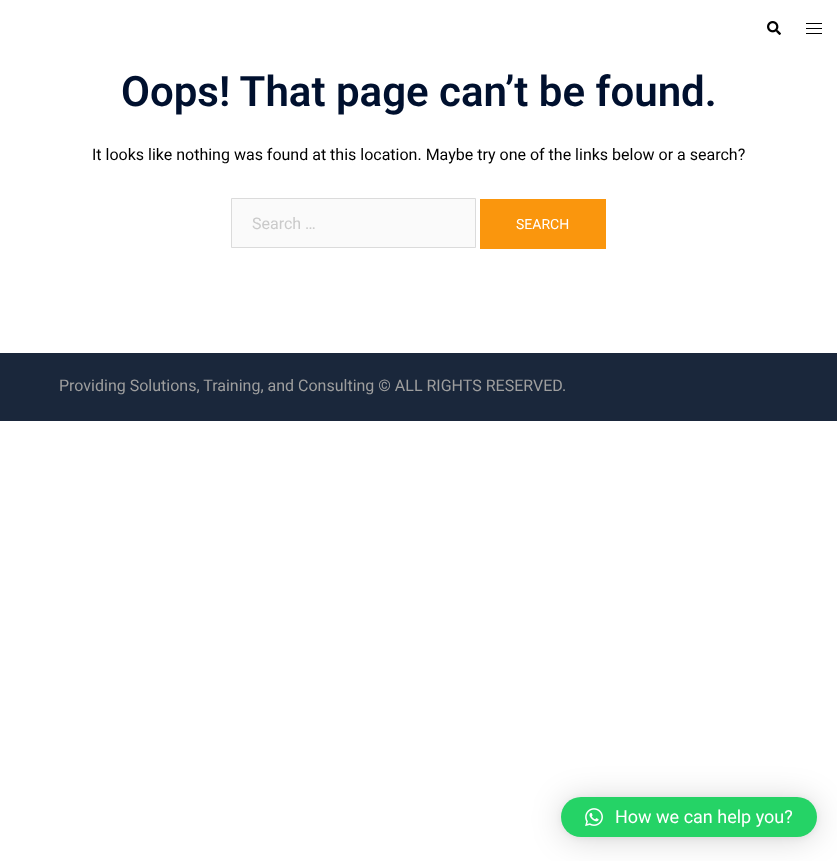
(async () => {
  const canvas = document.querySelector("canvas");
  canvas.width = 837;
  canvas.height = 861;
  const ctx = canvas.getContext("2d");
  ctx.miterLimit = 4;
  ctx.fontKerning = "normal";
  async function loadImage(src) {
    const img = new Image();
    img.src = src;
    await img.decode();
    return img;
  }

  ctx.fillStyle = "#ffffff";
  ctx.fillRect(0, 0, 837, 861);
  ctx.drawImage(await loadImage("img/1.png"), 767, 21, 14, 14);
  for (const [x, y, w, h, color] of [
    [806, 23, 16, 1, "#000000"],
    [806, 28, 16, 1, "#000000"],
    [806, 33, 16, 1, "#000000"],
  ]) {
    ctx.fillStyle = color;
    ctx.fillRect(x, y, w, h);
  }
  ctx.fillStyle = "#fafafa";
  ctx.beginPath();
  ctx.rect(231.5, 198.5, 244, 49);
  ctx.fill();
  ctx.strokeStyle = "#dbdbdb";
  ctx.stroke();
  ctx.fillStyle = "#fa960d";
  ctx.fillRect(480, 199, 126, 50);
  ctx.fillStyle = "#1a273b";
  ctx.fillRect(0, 353, 837, 68);
  ctx.fillStyle = "rgba(0, 0, 0, 0.16)";
  ctx.filter = "blur(16px)";
  ctx.beginPath();
  ctx.roundRect(561, 799, 256, 40, 20);
  ctx.fill();
  ctx.filter = "none";
  ctx.fillStyle = "rgba(0, 0, 0, 0.06)";
  ctx.filter = "blur(3px)";
  ctx.beginPath();
  ctx.roundRect(561, 798, 256, 40, 20);
  ctx.fill();
  ctx.filter = "none";
  ctx.fillStyle = "#25d366";
  ctx.beginPath();
  ctx.roundRect(561, 797, 256, 40, 20);
  ctx.fill();
  ctx.drawImage(await loadImage("img/2.png"), 585, 808, 18, 19);
  ctx.font = "600 42px Roboto";
  ctx.fillStyle = "#00102e";
  ctx.fillText("Oops! That page can’t be found.", 121, 106);
  ctx.font = "16px Roboto";
  ctx.fillStyle = "#000000";
  ctx.fillText("It looks like nothing was found at this location. Maybe try one of the links below or a search?", 92, 160);
  ctx.fillStyle = "#cacaca";
  ctx.fillText("Search …", 252, 229);
  ctx.font = "14px Roboto";
  ctx.fillStyle = "#ffffff";
  ctx.fillText("SEARCH", 516, 229);
  ctx.font = "16px Roboto";
  ctx.fillStyle = "#9e9e9e";
  ctx.fillText("Providing Solutions, Training, and Consulting © ALL RIGHTS RESERVED.", 59, 391);
  ctx.font = "18px Roboto";
  ctx.fillStyle = "#ffffff";
  ctx.fillText("How we can help you?", 615, 823);
})();
